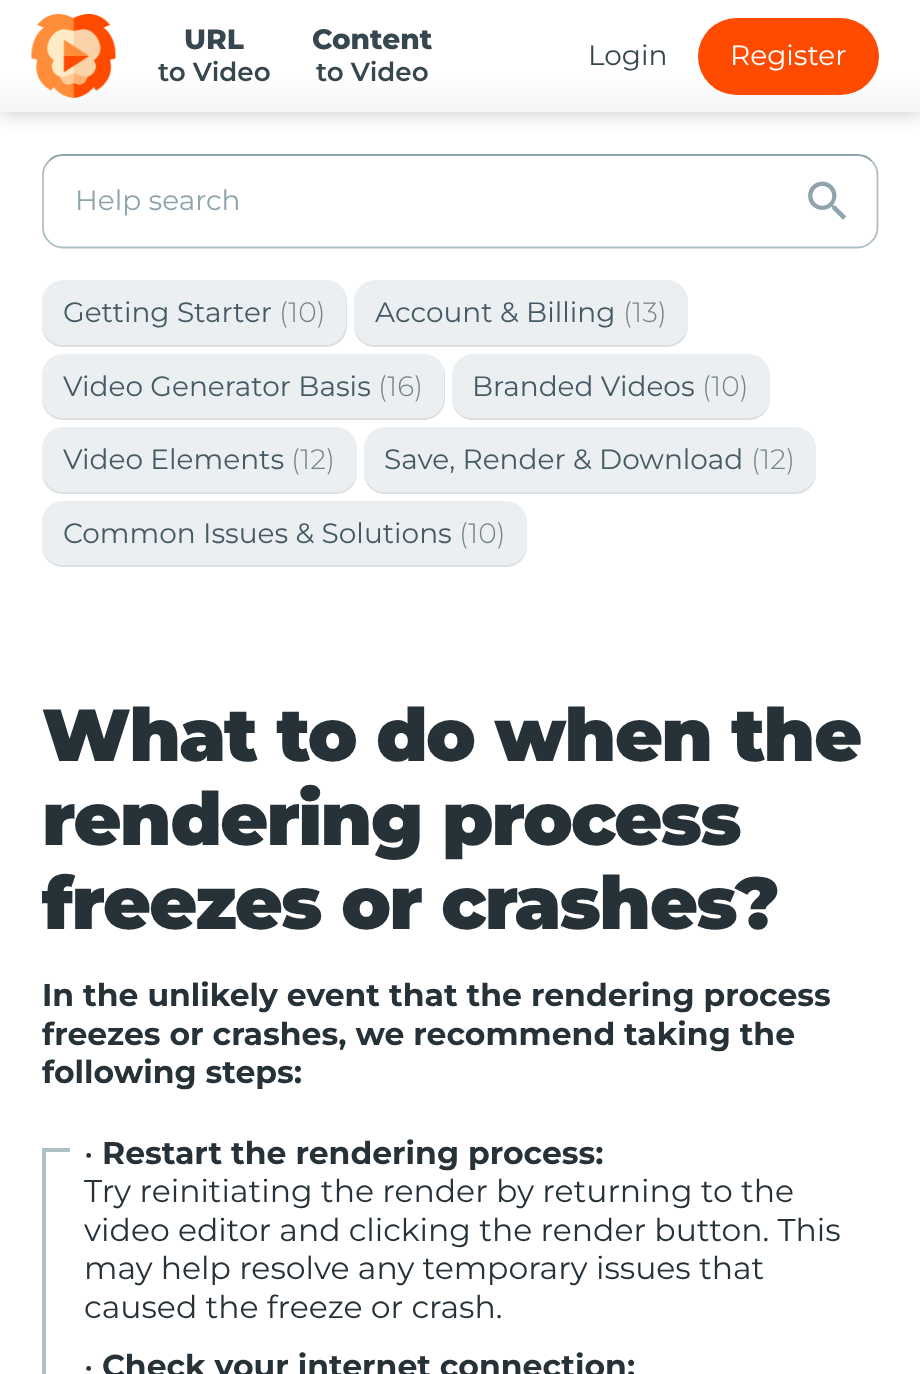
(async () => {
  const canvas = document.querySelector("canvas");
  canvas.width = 920;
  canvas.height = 1374;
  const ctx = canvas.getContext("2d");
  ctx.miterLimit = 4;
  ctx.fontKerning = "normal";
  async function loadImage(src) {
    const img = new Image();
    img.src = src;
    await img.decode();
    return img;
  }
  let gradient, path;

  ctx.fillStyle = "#ffffff";
  ctx.fillRect(0, 0, 920, 1374);
  ctx.fillStyle = "rgba(0, 0, 0, 0.24)";
  ctx.filter = "blur(10.5px)";
  ctx.beginPath();
  ctx.rect(0, 0, 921, 112);
  ctx.fill();
  ctx.filter = "none";
  gradient = ctx.createLinearGradient(460, 0, 460, 112);
  gradient.addColorStop(0.66, "#ffffff");
  gradient.addColorStop(1, "#f4f5f7");
  ctx.fillStyle = gradient;
  ctx.fillRect(0, 0, 920, 112);
  ctx.drawImage(await loadImage("img/1.png"), 31, 14, 85, 84);
  ctx.fillStyle = "#fe4b00";
  ctx.beginPath();
  ctx.roundRect(698, 18, 181, 77, 38.5);
  ctx.fill();
  path = new Path2D("M49 161C52.5 157 57.5 155 63 155H857.5C863 155 868 157 871.5 161");
  ctx.strokeStyle = "#90a4ae";
  ctx.lineWidth = 1.8;
  ctx.stroke(path);
  path = new Path2D("M871.5 161C875.5 164.5 877.5 169.5 877.5 175V227.5C877.5 233 875.5 238 871.5 241.5C868 245.5 863 247.5 857.5 247.5H63C57.5 247.5 52.5 245.5 49 241.5C45 238 43 233 43 227.5V175C43 169.5 45 164.5 49 161");
  ctx.strokeStyle = "#b0bec5";
  ctx.stroke(path);
  ctx.drawImage(await loadImage("img/2.png"), 808, 181, 39, 39);
  ctx.fillStyle = "#eceff1";
  ctx.beginPath();
  ctx.roundRect(42, 280, 305, 67, 21);
  ctx.fill();
  ctx.fillStyle = "rgba(38, 50, 56, 0.08)";
  path = new Path2D("M42 324V326C42 338 51 347 63 347H326C338 347 347 338 347 326V301C347 297 346 294 344 290C345 293 346 296 346 299V324C346 335 337 345 326 345H63C51 345 42 335 42 324Z");
  ctx.fill(path);
  ctx.fillStyle = "#eceff1";
  ctx.beginPath();
  ctx.roundRect(354, 280, 334, 67, 21);
  ctx.fill();
  ctx.fillStyle = "rgba(38, 50, 56, 0.08)";
  path = new Path2D("M354 324V326C354 338 363 347 375 347H667C679 347 688 338 688 326V324C688 335 678 345 667 345H374C363 345 354 335 354 324Z");
  ctx.fill(path);
  ctx.fillStyle = "#eceff1";
  ctx.beginPath();
  ctx.roundRect(42, 354, 403, 66, 21);
  ctx.fill();
  ctx.fillStyle = "rgba(38, 50, 56, 0.08)";
  path = new Path2D("M42 397V399C42 411 51 420 63 420H424C436 420 445 411 445 399V375C445 372 444 368 443 366C444 368 444 370 444 373V397C444 409 435 418 424 418H63C51 418 42 409 42 397Z");
  ctx.fill(path);
  ctx.fillStyle = "#eceff1";
  ctx.beginPath();
  ctx.roundRect(452, 354, 318, 66, 21);
  ctx.fill();
  ctx.fillStyle = "rgba(38, 50, 56, 0.08)";
  path = new Path2D("M452 397V399C452 411 461 420 473 420H749C761 420 770 411 770 399V397C770 409 761 418 749 418H472C461 418 452 409 452 397Z");
  ctx.fill(path);
  ctx.fillStyle = "#eceff1";
  ctx.beginPath();
  ctx.roundRect(42, 427, 315, 67, 21);
  ctx.fill();
  ctx.fillStyle = "rgba(38, 50, 56, 0.08)";
  path = new Path2D("M42 471V473C42 485 51 494 63 494H336C348 494 357 485 357 473V471C357 482 348 492 336 492H63C51 492 42 482 42 471Z");
  ctx.fill(path);
  ctx.fillStyle = "#eceff1";
  ctx.beginPath();
  ctx.roundRect(364, 427, 452, 67, 21);
  ctx.fill();
  ctx.fillStyle = "rgba(38, 50, 56, 0.08)";
  path = new Path2D("M364 471V473C364 485 373 494 385 494H795C807 494 816 485 816 473V471C816 482 806 492 794 492H385C373 492 364 482 364 471Z");
  ctx.fill(path);
  ctx.fillStyle = "#eceff1";
  ctx.beginPath();
  ctx.roundRect(42, 501, 485, 66, 21);
  ctx.fill();
  ctx.fillStyle = "rgba(38, 50, 56, 0.08)";
  path = new Path2D("M42 544V546C42 558 51 567 63 567H506C518 567 527 558 527 546V544C527 556 517 565 506 565H63C51 565 42 556 42 544Z");
  ctx.fill(path);
  ctx.fillStyle = "#b0bec5";
  ctx.fillRect(42, 1148, 4, 226);
  ctx.fillRect(42, 1148, 28, 4);
  ctx.font = "800 28px Montserrat";
  ctx.fillStyle = "#37474f";
  ctx.fillText("URL", 184, 49);
  ctx.font = "600 26.25px Montserrat";
  ctx.fillText("to Video", 158, 81);
  ctx.font = "800 28px Montserrat";
  ctx.fillText("Content", 312, 49);
  ctx.font = "600 26.25px Montserrat";
  ctx.fillText("to Video", 316, 81);
  ctx.font = "28px Montserrat";
  ctx.fillText("Login", 588, 65);
  ctx.fillStyle = "#ffffff";
  ctx.fillText("Register", 730, 65);
  ctx.fillStyle = "#90a4ae";
  ctx.fillText("Help search", 75, 210);
  ctx.fillStyle = "#455a64";
  ctx.fillText("Getting Starter", 63, 322);
  ctx.font = "300 28px Montserrat";
  ctx.fillStyle = "#74848b";
  ctx.fillText("(10)", 279, 322);
  ctx.font = "28px Montserrat";
  ctx.fillStyle = "#455a64";
  ctx.fillText("Account & Billing", 375, 322);
  ctx.font = "300 28px Montserrat";
  ctx.fillStyle = "#74848b";
  ctx.fillText("(13)", 623, 322);
  ctx.font = "28px Montserrat";
  ctx.fillStyle = "#455a64";
  ctx.fillText("Video Generator Basis", 63, 396);
  ctx.font = "300 28px Montserrat";
  ctx.fillStyle = "#74848b";
  ctx.fillText("(16)", 378, 396);
  ctx.font = "28px Montserrat";
  ctx.fillStyle = "#455a64";
  ctx.fillText("Branded Videos", 472, 396);
  ctx.font = "300 28px Montserrat";
  ctx.fillStyle = "#74848b";
  ctx.fillText("(10)", 702, 396);
  ctx.font = "28px Montserrat";
  ctx.fillStyle = "#455a64";
  ctx.fillText("Video Elements", 63, 469);
  ctx.font = "300 28px Montserrat";
  ctx.fillStyle = "#74848b";
  ctx.fillText("(12)", 291, 469);
  ctx.font = "28px Montserrat";
  ctx.fillStyle = "#455a64";
  ctx.fillText("Save, Render & Download", 384, 469);
  ctx.font = "300 28px Montserrat";
  ctx.fillStyle = "#74848b";
  ctx.fillText("(12)", 751, 469);
  ctx.font = "28px Montserrat";
  ctx.fillStyle = "#455a64";
  ctx.fillText("Common Issues & Solutions", 63, 543);
  ctx.font = "300 28px Montserrat";
  ctx.fillStyle = "#74848b";
  ctx.fillText("(10)", 459, 543);
  ctx.letterSpacing = "-1.75px";
  ctx.font = "900 73.5px Montserrat";
  ctx.fillStyle = "#263238";
  for (const [text, x, y] of [
    ["What to do when the", 42, 761],
    ["rendering process", 42, 845],
    ["freezes or crashes?", 42, 929],
  ]) {
    ctx.fillText(text, x, y);
  }
  ctx.letterSpacing = "0px";
  ctx.font = "bold 31.5px Montserrat";
  for (const [text, x, y] of [
    ["In the unlikely event that the rendering process", 42, 1006],
    ["freezes or crashes, we recommend taking the", 42, 1045],
    ["following steps:", 42, 1083],
    ["Restart the rendering process:", 102, 1164],
  ]) {
    ctx.fillText(text, x, y);
  }
  ctx.font = "31.5px Montserrat";
  for (const [text, x, y] of [
    ["•", 84, 1164],
    ["Try reinitiating the render by returning to the", 84, 1202],
    ["video editor and clicking the render button. This", 84, 1241],
    ["may help resolve any temporary issues that", 84, 1279],
    ["caused the freeze or crash.", 84, 1318],
    ["•", 84, 1377],
  ]) {
    ctx.fillText(text, x, y);
  }
  ctx.font = "bold 31.5px Montserrat";
  ctx.fillText("Check your internet connection:", 102, 1377);
})();
